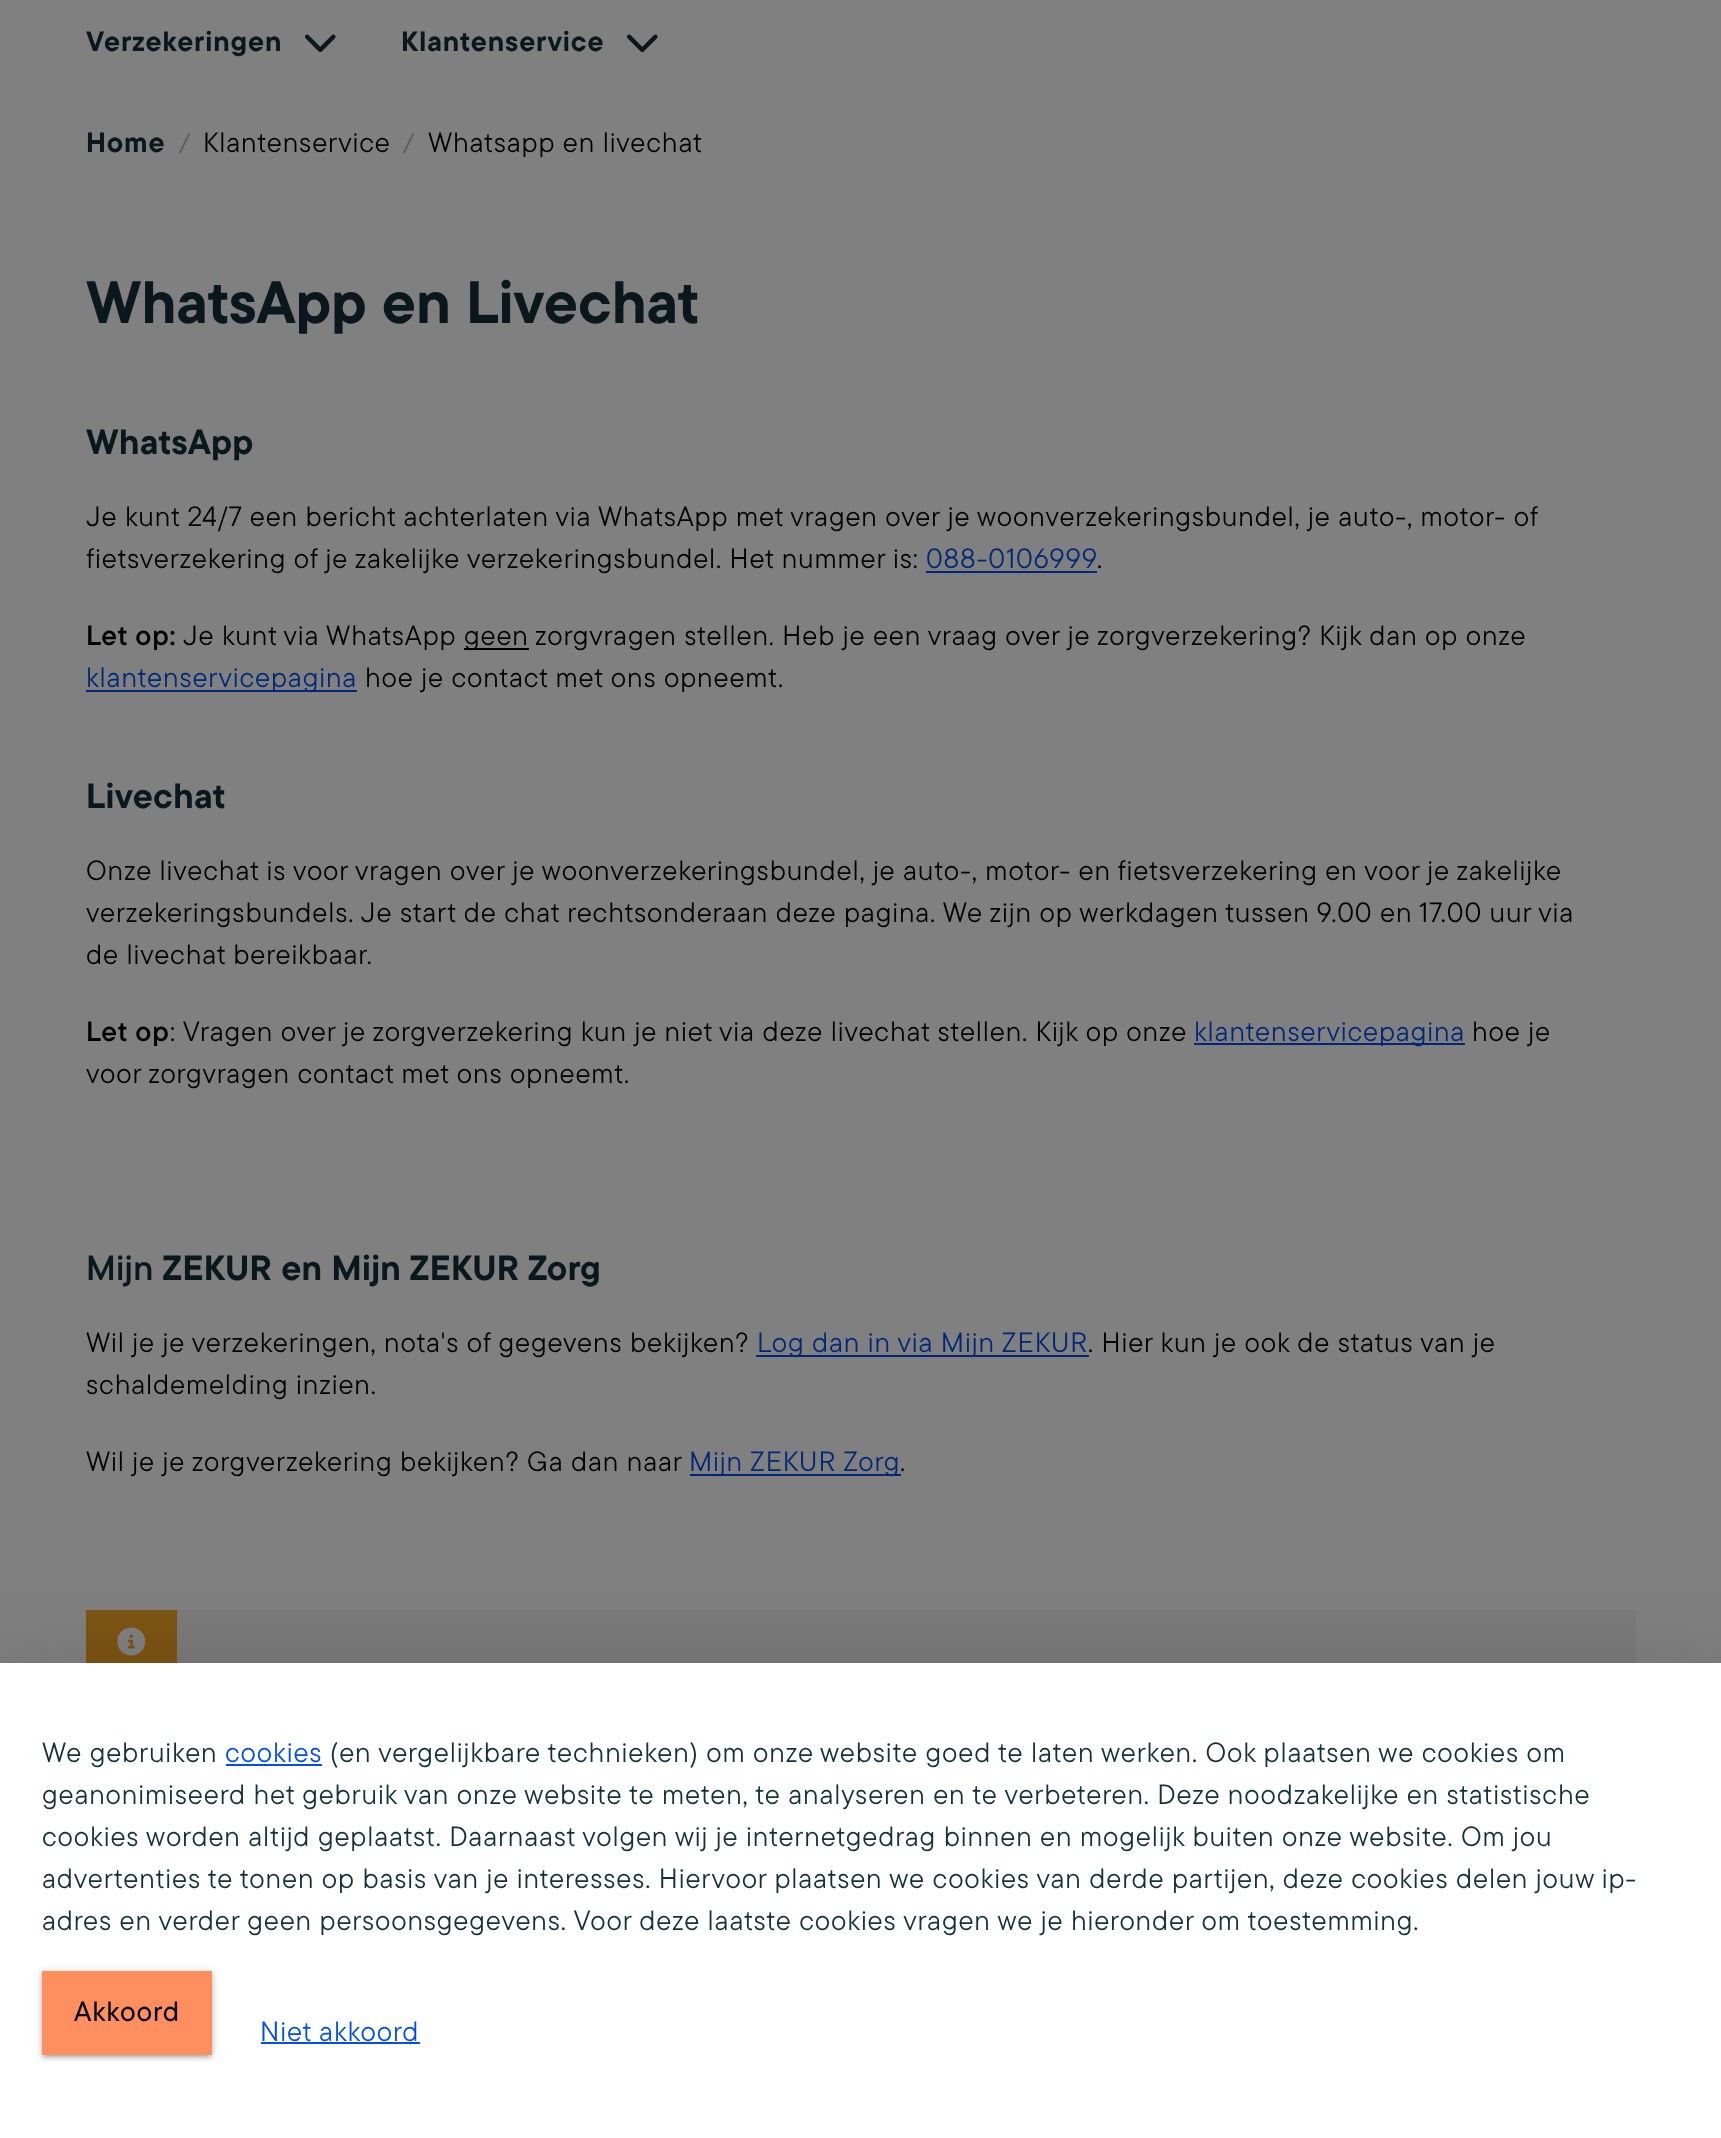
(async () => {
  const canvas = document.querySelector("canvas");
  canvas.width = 1721;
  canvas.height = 2138;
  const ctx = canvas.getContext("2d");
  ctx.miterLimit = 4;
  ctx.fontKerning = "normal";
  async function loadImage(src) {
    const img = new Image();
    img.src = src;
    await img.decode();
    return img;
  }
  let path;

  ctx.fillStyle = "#808080";
  ctx.fillRect(0, 0, 1721, 2138);
  ctx.drawImage(await loadImage("img/1.png"), 305, 34, 31, 18);
  ctx.drawImage(await loadImage("img/1.png"), 627, 34, 31, 18);
  ctx.fillStyle = "#626262";
  path = new Path2D("M190.5 133.5H188H190.5H188L178.5 153H181Z");
  ctx.fill(path);
  path = new Path2D("M414.5 133.5H412H414.5H412L402.5 153H405Z");
  ctx.fill(path);
  for (const [x, y, w, h, color] of [
    [926, 571, 171, 2, "#002778"],
    [464, 648, 65, 2, "#000000"],
    [86, 690, 271, 2, "#002778"],
    [1194, 1043, 271, 2, "#002778"],
    [756, 1355, 333, 2, "#002778"],
    [690, 1474, 211, 2, "#002778"],
    [86, 1610, 91, 53, "#7d5413"],
  ]) {
    ctx.fillStyle = color;
    ctx.fillRect(x, y, w, h);
  }
  ctx.drawImage(await loadImage("img/2.png"), 117, 1627, 29, 29);
  ctx.fillStyle = "#7b7b7b";
  ctx.fillRect(177, 1610, 1459, 53);
  ctx.fillStyle = "rgba(0, 0, 0, 0.12)";
  ctx.filter = "blur(40px)";
  ctx.beginPath();
  ctx.rect(-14, 1664, 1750, 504);
  ctx.fill();
  ctx.filter = "none";
  ctx.fillStyle = "#ffffff";
  ctx.fillRect(0, 1663, 1721, 475);
  ctx.fillStyle = "#004def";
  ctx.fillRect(226, 1764, 96, 2);
  ctx.fillStyle = "rgba(0, 0, 0, 0.2)";
  ctx.filter = "blur(4.5px)";
  ctx.beginPath();
  ctx.rect(42, 1972, 170, 84);
  ctx.fill();
  ctx.filter = "none";
  ctx.fillStyle = "rgba(0, 0, 0, 0.12)";
  ctx.filter = "blur(1px)";
  ctx.beginPath();
  ctx.rect(46, 1979, 162, 77);
  ctx.fill();
  ctx.filter = "none";
  ctx.fillStyle = "rgba(0, 0, 0, 0.14)";
  ctx.filter = "blur(2px)";
  ctx.beginPath();
  ctx.rect(42, 1974, 170, 84);
  ctx.fill();
  ctx.filter = "none";
  ctx.fillStyle = "#ff8f5f";
  ctx.fillRect(42, 1971, 170, 84);
  ctx.fillStyle = "#004def";
  ctx.fillRect(261, 2042, 159, 2);
  ctx.letterSpacing = "0.88px";
  ctx.font = "bold 28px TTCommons";
  ctx.fillStyle = "#0a181d";
  for (const [text, x, y] of [
    ["Verzekeringen", 86, 51],
    ["Klantenservice", 401, 51],
    ["Home", 86, 152],
  ]) {
    ctx.fillText(text, x, y);
  }
  ctx.font = "28px TTCommons";
  ctx.fillStyle = "#000000";
  ctx.fillText("Klantenservice", 203, 152);
  ctx.fillText("Whatsapp en livechat", 428, 152);
  ctx.letterSpacing = "0px";
  ctx.font = "bold 59.5px TTCommons";
  ctx.fillStyle = "#0a181d";
  ctx.fillText("WhatsApp en Livechat", 86, 323);
  ctx.letterSpacing = "0.3px";
  ctx.font = "bold 35px TTCommons";
  ctx.fillText("WhatsApp", 86, 454);
  ctx.letterSpacing = "0.88px";
  ctx.font = "28px TTCommons";
  ctx.fillStyle = "#000000";
  ctx.fillText("Je kunt 24/7 een bericht achterlaten via WhatsApp met vragen over je woonverzekeringsbundel, je auto-, motor- of", 86, 526);
  ctx.fillText("fietsverzekering of je zakelijke verzekeringsbundel. Het nummer is:", 86, 568);
  ctx.fillStyle = "#002778";
  ctx.fillText("088-0106999", 926, 568);
  ctx.fillStyle = "#000000";
  ctx.fillText(".", 1097, 568);
  ctx.font = "600 28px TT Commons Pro";
  ctx.fillText("Let op:", 86, 645);
  ctx.font = "28px TTCommons";
  for (const [text, x, y] of [
    ["Je kunt via WhatsApp", 183, 645],
    ["geen", 464, 645],
    ["zorgvragen stellen. Heb je een vraag over je zorgverzekering? Kijk dan op onze", 535, 645],
  ]) {
    ctx.fillText(text, x, y);
  }
  ctx.fillStyle = "#002778";
  ctx.fillText("klantenservicepagina", 86, 687);
  ctx.fillStyle = "#000000";
  ctx.fillText("hoe je contact met ons opneemt.", 365, 687);
  ctx.letterSpacing = "0.3px";
  ctx.font = "bold 35px TTCommons";
  ctx.fillStyle = "#0a181d";
  ctx.fillText("Livechat", 86, 808);
  ctx.letterSpacing = "0.88px";
  ctx.font = "28px TTCommons";
  ctx.fillStyle = "#000000";
  for (const [text, x, y] of [
    ["Onze livechat is voor vragen over je woonverzekeringsbundel, je auto-, motor- en fietsverzekering en voor je zakelijke", 86, 880],
    ["verzekeringsbundels. Je start de chat rechtsonderaan deze pagina. We zijn op werkdagen tussen 9.00 en 17.00 uur via", 86, 922],
    ["de livechat bereikbaar.", 86, 964],
  ]) {
    ctx.fillText(text, x, y);
  }
  ctx.font = "600 28px TT Commons Pro";
  ctx.fillText("Let op", 86, 1041);
  ctx.font = "28px TTCommons";
  ctx.fillText(": Vragen over je zorgverzekering kun je niet via deze livechat stellen. Kijk op onze", 170, 1041);
  ctx.fillStyle = "#002778";
  ctx.fillText("klantenservicepagina", 1194, 1041);
  ctx.fillStyle = "#000000";
  ctx.fillText("hoe je", 1472, 1041);
  ctx.fillText("voor zorgvragen contact met ons opneemt.", 86, 1083);
  ctx.letterSpacing = "0.3px";
  ctx.font = "600 35px TT Commons Pro";
  ctx.fillStyle = "#0a181d";
  ctx.fillText("Mijn", 86, 1280);
  ctx.font = "bold 35px TTCommons";
  ctx.fillText("ZEKUR en Mijn ZEKUR Zorg", 162, 1280);
  ctx.letterSpacing = "0.88px";
  ctx.font = "28px TTCommons";
  ctx.fillStyle = "#000000";
  ctx.fillText("Wil je je verzekeringen, nota's of gegevens bekijken?", 86, 1352);
  ctx.fillStyle = "#002778";
  ctx.fillText("Log dan in via Mijn ZEKUR", 757, 1352);
  ctx.fillStyle = "#000000";
  for (const [text, x, y] of [
    [". Hier kun je ook de status van je", 1088, 1352],
    ["schaldemelding inzien.", 86, 1394],
    ["Wil je je zorgverzekering bekijken? Ga dan naar", 86, 1471],
  ]) {
    ctx.fillText(text, x, y);
  }
  ctx.fillStyle = "#002778";
  ctx.fillText("Mijn ZEKUR Zorg", 689, 1471);
  ctx.fillStyle = "#000000";
  ctx.fillText(".", 900, 1471);
  ctx.fillStyle = "#143039";
  ctx.fillText("We gebruiken", 42, 1762);
  ctx.fillStyle = "#004def";
  ctx.fillText("cookies", 225, 1762);
  ctx.fillStyle = "#143039";
  for (const [text, x, y] of [
    ["(en vergelijkbare technieken) om onze", 330, 1762],
    ["website goed te laten werken. Ook plaatsen we cookies om", 820, 1762],
    ["geanonimiseerd het gebruik van onze website te meten, te analyseren en te verbeteren. Deze noodzakelijke en statistische", 42, 1804],
    ["cookies worden altijd geplaatst. Daarnaast volgen wij je internetgedrag binnen en mogelijk buiten onze website. Om jou", 42, 1846],
    ["advertenties te tonen op basis van je interesses. Hiervoor plaatsen we cookies van derde partijen, deze cookies delen jouw ip-", 42, 1888],
    ["adres en verder geen persoonsgegevens. Voor deze laatste cookies vragen we je hieronder om toestemming.", 42, 1930],
  ]) {
    ctx.fillText(text, x, y);
  }
  ctx.font = "500 28px TT Commons Pro";
  ctx.fillStyle = "#000000";
  ctx.fillText("Akkoord", 74, 2021);
  ctx.font = "28px TTCommons";
  ctx.fillStyle = "#004def";
  ctx.fillText("Niet akkoord", 260, 2041);
})();
